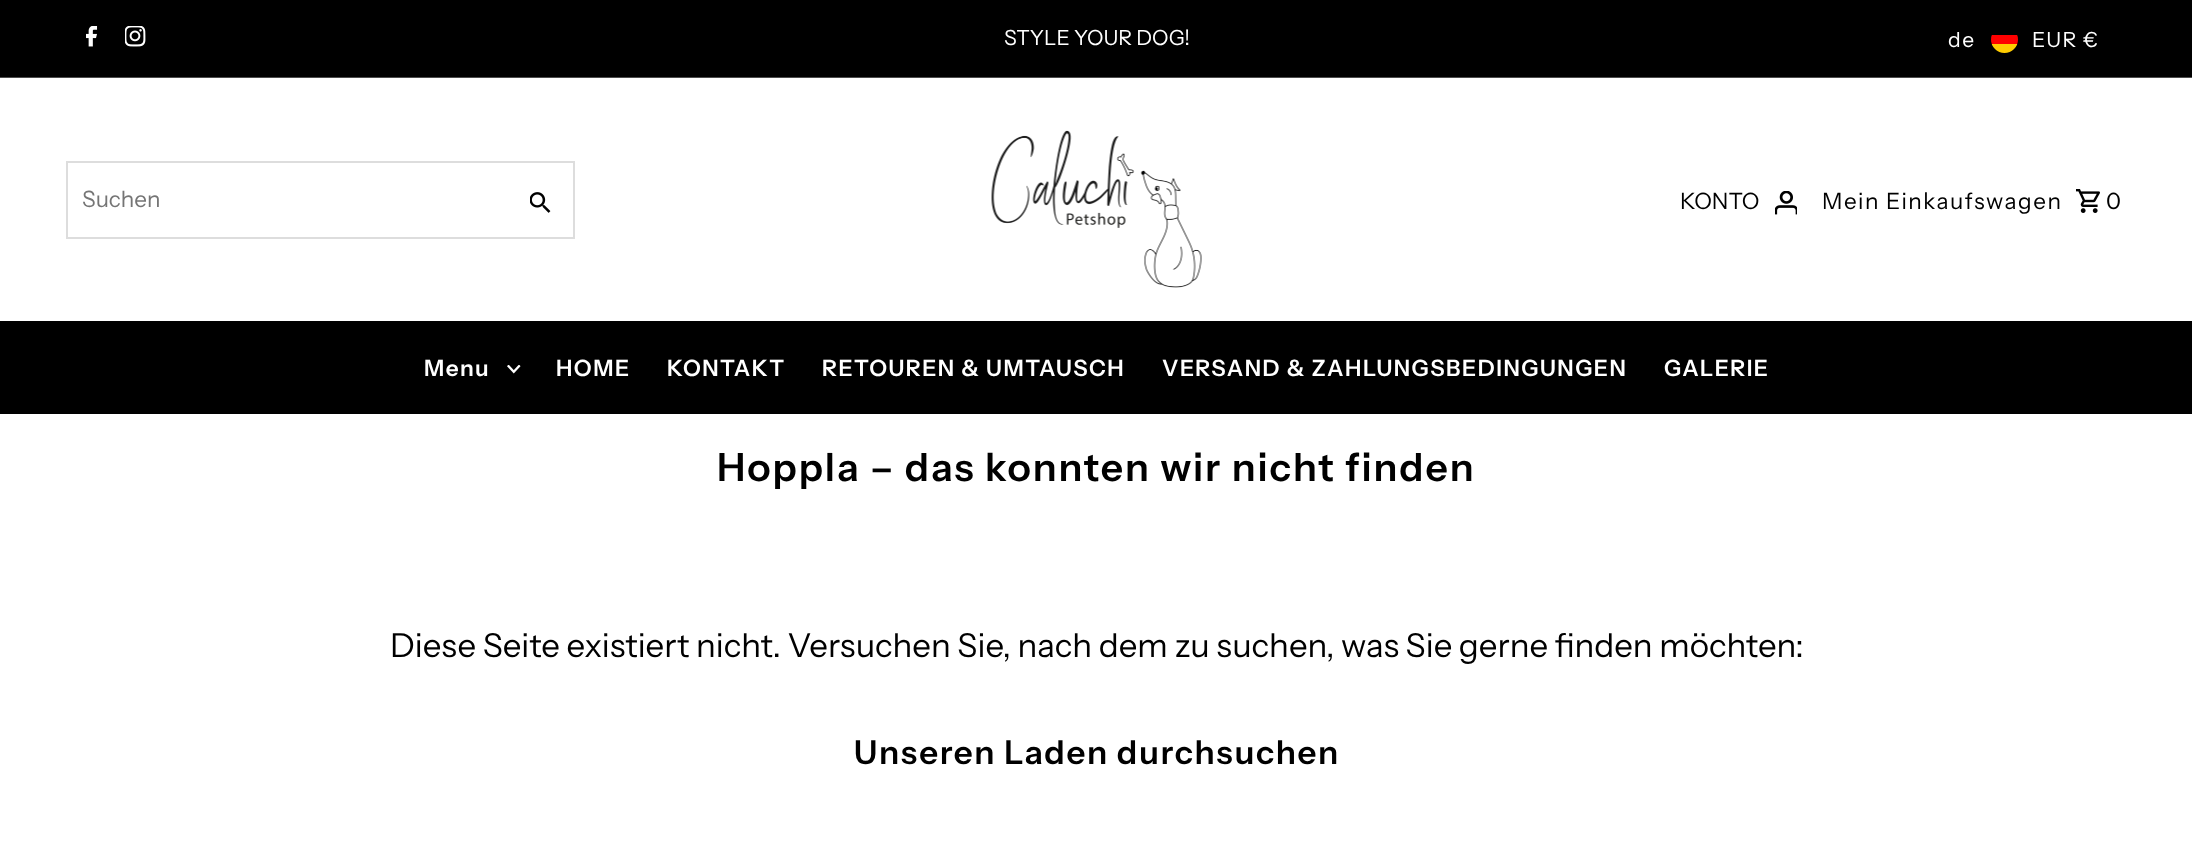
(async () => {
  const canvas = document.querySelector("canvas");
  canvas.width = 2192;
  canvas.height = 846;
  const ctx = canvas.getContext("2d");
  ctx.miterLimit = 4;
  ctx.fontKerning = "normal";
  async function loadImage(src) {
    const img = new Image();
    img.src = src;
    await img.decode();
    return img;
  }

  ctx.fillStyle = "#ffffff";
  ctx.fillRect(0, 0, 2192, 846);
  ctx.fillStyle = "#4d4d4d";
  ctx.fillRect(0, 77, 2192, 1);
  ctx.fillStyle = "#000000";
  ctx.fillRect(0, 0, 2192, 77);
  ctx.drawImage(await loadImage("img/1.png"), 86, 26, 12, 21);
  ctx.drawImage(await loadImage("img/2.png"), 125, 26, 21, 21);
  ctx.save();
  ctx.beginPath();
  ctx.roundRect(1991, 26, 27, 27, 13.5);
  ctx.clip();
  ctx.fillStyle = "#ffcc00";
  ctx.fillRect(1991, 44, 27, 9);
  ctx.fillStyle = "#ff0000";
  ctx.fillRect(1991, 35, 27, 9);
  ctx.restore();
  ctx.strokeStyle = "#dddddd";
  ctx.lineWidth = 2;
  ctx.strokeRect(67, 162, 507, 76);
  ctx.drawImage(await loadImage("img/3.png"), 530, 192, 21, 21);
  ctx.drawImage(await loadImage("img/4.png"), 991, 130, 211, 158);
  ctx.drawImage(await loadImage("img/5.png"), 1775, 191, 22, 24);
  ctx.drawImage(await loadImage("img/6.png"), 2076, 189, 24, 24);
  ctx.fillRect(0, 321, 2192, 93);
  ctx.drawImage(await loadImage("img/7.png"), 507, 365, 14, 9);
  ctx.font = "21px Instrument Sans";
  ctx.fillStyle = "#ffffff";
  ctx.fillText("STYLE YOUR DOG!", 1004, 45);
  ctx.letterSpacing = "1.5px";
  ctx.fillText("de", 1948, 47);
  ctx.fillText("EUR €", 2032, 47);
  ctx.letterSpacing = "0px";
  ctx.font = "22.5px Instrument Sans";
  ctx.fillStyle = "#757575";
  ctx.fillText("Suchen", 82, 207);
  ctx.fillStyle = "#000000";
  ctx.fillText("KONTO", 1680, 209);
  ctx.letterSpacing = "1.5px";
  ctx.fillText("Mein Einkaufswagen", 1822, 209);
  ctx.fillText("0", 2106, 209);
  ctx.font = "600 22.5px Instrument Sans";
  ctx.fillStyle = "#ffffff";
  for (const [text, x, y] of [
    ["Menu", 424, 376],
    ["HOME", 556, 376],
    ["KONTAKT", 667, 376],
    ["RETOUREN & UMTAUSCH", 822, 376],
    ["VERSAND & ZAHLUNGSBEDINGUNGEN", 1162, 376],
    ["GALERIE", 1664, 376],
  ]) {
    ctx.fillText(text, x, y);
  }
  ctx.letterSpacing = "1.95px";
  ctx.font = "600 39px Instrument Sans";
  ctx.fillStyle = "#000000";
  ctx.fillText("Hoppla – das konnten wir nicht finden", 717, 481);
  ctx.letterSpacing = "0px";
  ctx.font = "33px Instrument Sans";
  ctx.fillText("Diese Seite existiert nicht. Versuchen Sie, nach dem zu suchen, was Sie gerne finden möchten:", 390, 657);
  ctx.letterSpacing = "1.65px";
  ctx.font = "600 33px Instrument Sans";
  ctx.fillText("Unseren Laden durchsuchen", 854, 764);
})();
